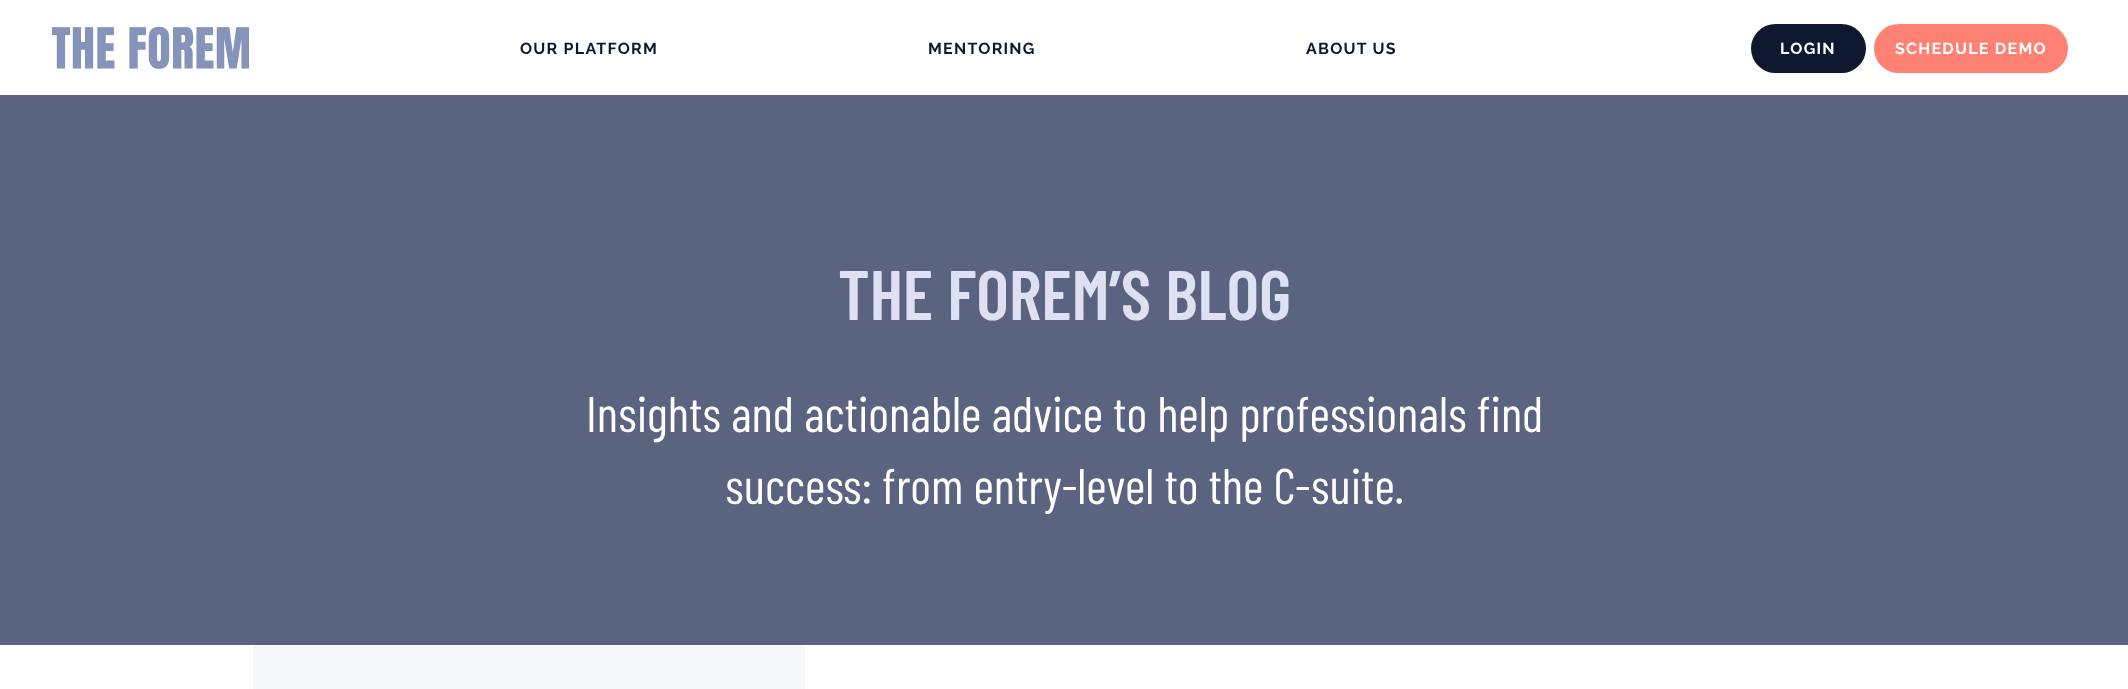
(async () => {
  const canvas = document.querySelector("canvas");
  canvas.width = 2128;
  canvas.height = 689;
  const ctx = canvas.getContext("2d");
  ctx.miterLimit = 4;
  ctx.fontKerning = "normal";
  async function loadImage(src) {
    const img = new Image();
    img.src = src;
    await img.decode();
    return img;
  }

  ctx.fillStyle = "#ffffff";
  ctx.fillRect(0, 0, 2128, 689);
  ctx.drawImage(await loadImage("img/1.png"), 51, 26, 198, 43);
  ctx.fillStyle = "#0e192f";
  ctx.beginPath();
  ctx.roundRect(1751, 24, 115, 49, 24.5);
  ctx.fill();
  ctx.fillStyle = "#ff8174";
  ctx.beginPath();
  ctx.roundRect(1874, 24, 194, 49, 24.5);
  ctx.fill();
  ctx.fillStyle = "#5a6380";
  ctx.fillRect(0, 95, 2128, 550);
  ctx.fillStyle = "#f6f7f8";
  ctx.fillRect(253, 645, 552, 44);
  ctx.letterSpacing = "1.25px";
  ctx.font = "bold 16px Raleway";
  ctx.fillStyle = "#0e192f";
  for (const [text, x, y] of [
    ["OUR PLATFORM", 520, 54],
    ["MENTORING", 928, 54],
    ["ABOUT US", 1306, 54],
  ]) {
    ctx.fillText(text, x, y);
  }
  ctx.fillStyle = "#ffffff";
  ctx.fillText("LOGIN", 1780, 54);
  ctx.fillText("SCHEDULE DEMO", 1895, 54);
  ctx.letterSpacing = "0px";
  ctx.font = "600 70px Barlow Condensed";
  ctx.fillStyle = "#dee1f4";
  ctx.fillText("THE FOREM’S BLOG", 838, 320);
  ctx.font = "50px Barlow Condensed";
  ctx.fillStyle = "#ffffff";
  ctx.fillText("Insights and actionable advice to help professionals find", 586, 432);
  ctx.fillText("success: from entry-level to the C-suite.", 725, 504);
})();
